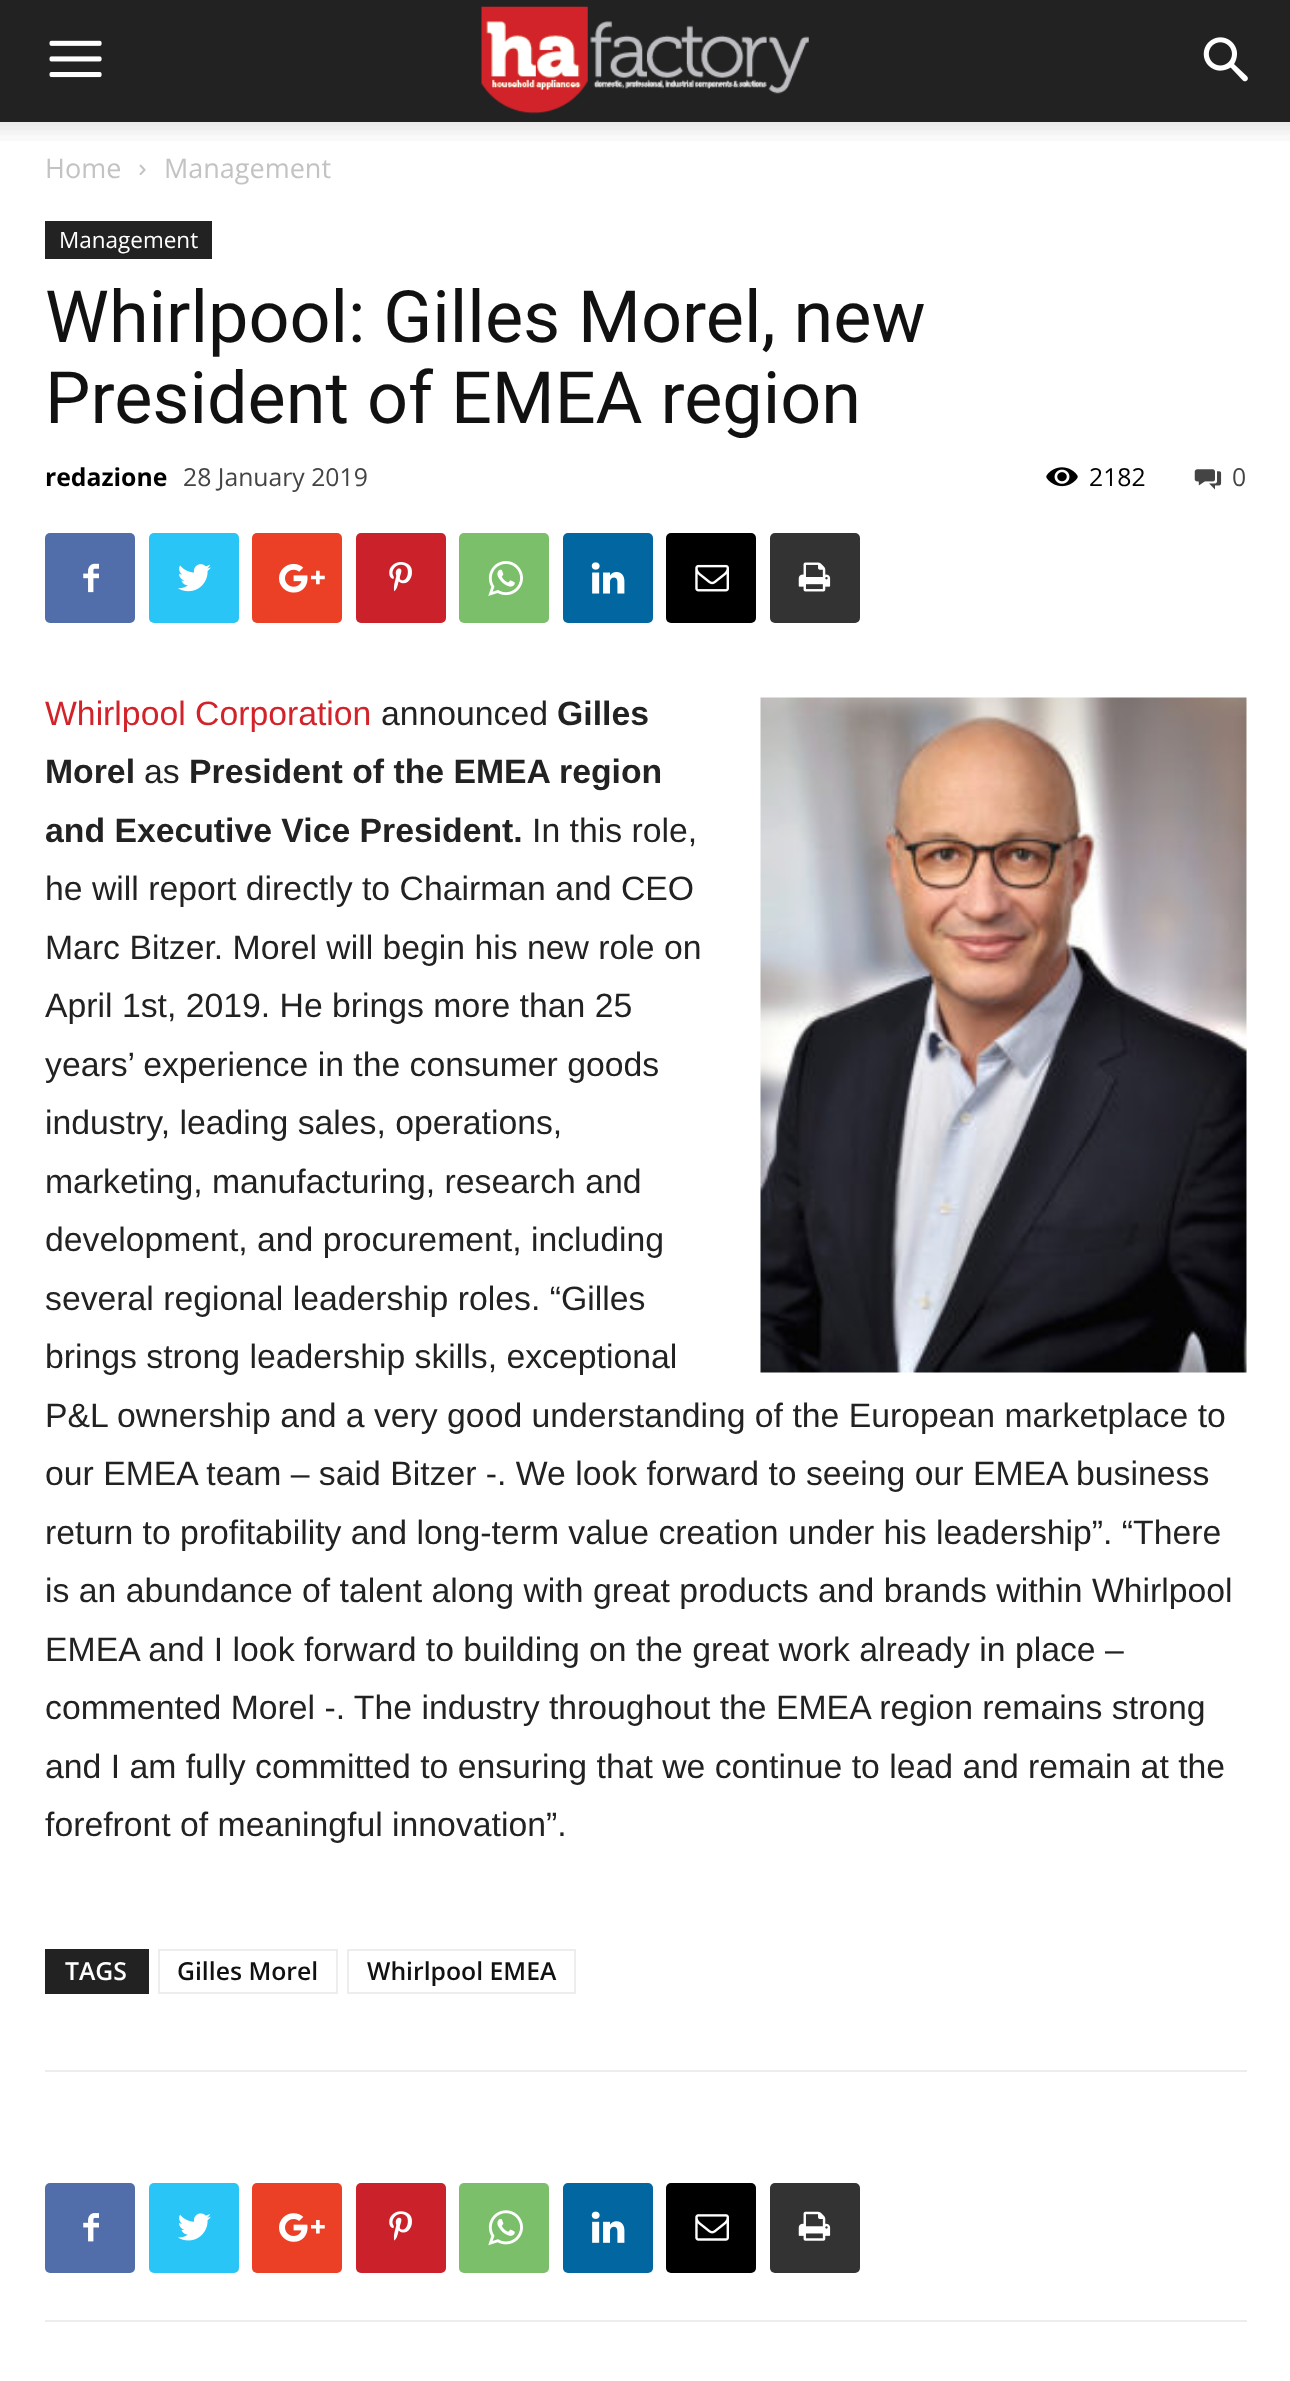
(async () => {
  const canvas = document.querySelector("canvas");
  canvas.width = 1290;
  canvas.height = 2381;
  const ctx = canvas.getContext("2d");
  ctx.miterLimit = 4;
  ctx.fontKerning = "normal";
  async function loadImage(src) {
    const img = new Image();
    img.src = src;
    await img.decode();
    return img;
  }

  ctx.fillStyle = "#ffffff";
  ctx.fillRect(0, 0, 1290, 2381);
  ctx.fillStyle = "#222222";
  ctx.fillRect(0, 0, 1290, 122);
  ctx.drawImage(await loadImage("img/1.png"), 49, 40, 53, 38);
  ctx.drawImage(await loadImage("img/2.png"), 481, 6, 328, 108);
  ctx.drawImage(await loadImage("img/3.png"), 1203, 37, 45, 45);
  ctx.drawImage(await loadImage("img/4.png"), 0, 122, 1290, 19);
  ctx.drawImage(await loadImage("img/5.png"), 139, 164, 7, 11);
  ctx.fillRect(45, 221, 167, 38);
  ctx.drawImage(await loadImage("img/6.png"), 1046, 467, 32, 20);
  ctx.drawImage(await loadImage("img/7.png"), 1194, 469, 28, 21);
  ctx.fillStyle = "#516eab";
  ctx.beginPath();
  ctx.roundRect(45, 533, 90, 90, 5);
  ctx.fill();
  ctx.drawImage(await loadImage("img/8.png"), 83, 563, 16, 30);
  ctx.fillStyle = "#29c5f6";
  ctx.beginPath();
  ctx.roundRect(149, 533, 90, 90, 5);
  ctx.fill();
  ctx.drawImage(await loadImage("img/9.png"), 178, 564, 33, 28);
  ctx.fillStyle = "#eb4026";
  ctx.beginPath();
  ctx.roundRect(252, 533, 90, 90, 5);
  ctx.fill();
  ctx.drawImage(await loadImage("img/10.png"), 279, 563, 46, 30);
  ctx.fillStyle = "#ca212a";
  ctx.beginPath();
  ctx.roundRect(356, 533, 90, 90, 5);
  ctx.fill();
  ctx.drawImage(await loadImage("img/11.png"), 389, 562, 23, 30);
  ctx.fillStyle = "#7bbf6a";
  ctx.beginPath();
  ctx.roundRect(459, 533, 90, 90, 5);
  ctx.fill();
  ctx.drawImage(await loadImage("img/12.png"), 488, 561, 35, 35);
  ctx.fillStyle = "#0266a0";
  ctx.beginPath();
  ctx.roundRect(563, 533, 90, 90, 5);
  ctx.fill();
  ctx.drawImage(await loadImage("img/13.png"), 591, 562, 34, 32);
  ctx.fillStyle = "#000000";
  ctx.beginPath();
  ctx.roundRect(666, 533, 90, 90, 5);
  ctx.fill();
  ctx.drawImage(await loadImage("img/14.png"), 695, 564, 34, 28);
  ctx.fillStyle = "#333333";
  ctx.beginPath();
  ctx.roundRect(770, 533, 90, 90, 5);
  ctx.fill();
  ctx.drawImage(await loadImage("img/15.png"), 798, 562, 33, 30);
  ctx.drawImage(await loadImage("img/16.png"), 760, 697, 487, 676);
  ctx.fillStyle = "#222222";
  ctx.fillRect(45, 1949, 104, 45);
  ctx.strokeStyle = "#ededed";
  ctx.lineWidth = 2;
  ctx.strokeRect(159, 1950, 178, 43);
  ctx.strokeRect(348, 1950, 227, 43);
  ctx.fillStyle = "#ededed";
  ctx.fillRect(45, 2070, 1202, 2);
  ctx.fillRect(45, 2320, 1202, 2);
  ctx.fillStyle = "#516eab";
  ctx.beginPath();
  ctx.roundRect(45, 2183, 90, 90, 5);
  ctx.fill();
  ctx.drawImage(await loadImage("img/17.png"), 83, 2213, 16, 29);
  ctx.fillStyle = "#29c5f6";
  ctx.beginPath();
  ctx.roundRect(149, 2183, 90, 90, 5);
  ctx.fill();
  ctx.drawImage(await loadImage("img/18.png"), 178, 2213, 33, 28);
  ctx.fillStyle = "#eb4026";
  ctx.beginPath();
  ctx.roundRect(252, 2183, 90, 90, 5);
  ctx.fill();
  ctx.drawImage(await loadImage("img/19.png"), 279, 2213, 46, 29);
  ctx.fillStyle = "#ca212a";
  ctx.beginPath();
  ctx.roundRect(356, 2183, 90, 90, 5);
  ctx.fill();
  ctx.drawImage(await loadImage("img/20.png"), 389, 2211, 23, 30);
  ctx.fillStyle = "#7bbf6a";
  ctx.beginPath();
  ctx.roundRect(459, 2183, 90, 90, 5);
  ctx.fill();
  ctx.drawImage(await loadImage("img/21.png"), 488, 2210, 35, 36);
  ctx.fillStyle = "#0266a0";
  ctx.beginPath();
  ctx.roundRect(563, 2183, 90, 90, 5);
  ctx.fill();
  ctx.drawImage(await loadImage("img/22.png"), 591, 2211, 34, 32);
  ctx.fillStyle = "#000000";
  ctx.beginPath();
  ctx.roundRect(666, 2183, 90, 90, 5);
  ctx.fill();
  ctx.drawImage(await loadImage("img/23.png"), 695, 2214, 34, 27);
  ctx.fillStyle = "#333333";
  ctx.beginPath();
  ctx.roundRect(770, 2183, 90, 90, 5);
  ctx.fill();
  ctx.drawImage(await loadImage("img/24.png"), 798, 2211, 33, 30);
  ctx.font = "27px Open Sans";
  ctx.fillStyle = "#c3c3c3";
  ctx.fillText("Home", 45, 178);
  ctx.fillText("Management", 164, 178);
  ctx.font = "22.5px Open Sans";
  ctx.fillStyle = "#ffffff";
  ctx.fillText("Management", 59, 248);
  ctx.font = "72px Roboto";
  ctx.fillStyle = "#111111";
  ctx.fillText("Whirlpool: Gilles Morel, new", 45, 342);
  ctx.fillText("President of EMEA region", 45, 423);
  ctx.font = "bold 24.75px Open Sans";
  ctx.fillStyle = "#000000";
  ctx.fillText("redazione", 45, 486);
  ctx.font = "24.75px Open Sans";
  ctx.fillStyle = "#444444";
  ctx.fillText("28 January 2019", 183, 486);
  ctx.fillStyle = "#000000";
  ctx.fillText("2182", 1089, 486);
  ctx.fillStyle = "#444444";
  ctx.fillText("0", 1232, 486);
  ctx.font = "33.75px Liberation Sans";
  ctx.fillStyle = "#d2232a";
  ctx.fillText("Whirlpool Corporation", 45, 725);
  ctx.fillStyle = "#222222";
  ctx.fillText("announced", 381, 725);
  ctx.font = "bold 33.75px Liberation Sans";
  ctx.fillText("Gilles", 557, 725);
  ctx.fillText("Morel", 45, 783);
  ctx.font = "33.75px Liberation Sans";
  ctx.fillText("as", 144, 783);
  ctx.font = "bold 33.75px Liberation Sans";
  ctx.fillText("President of the EMEA region", 189, 783);
  ctx.fillText("and Executive Vice President.", 45, 842);
  ctx.font = "33.75px Liberation Sans";
  for (const [text, x, y] of [
    ["In this role,", 532, 842],
    ["he will report directly to Chairman and CEO", 45, 900],
    ["Marc Bitzer. Morel will begin his new role on", 45, 959],
    ["April 1st, 2019. He brings more than 25", 45, 1017],
    ["years’ experience in the consumer goods", 45, 1076],
    ["industry, leading sales, operations,", 45, 1134],
    ["marketing, manufacturing, research and", 45, 1193],
    ["development, and procurement, including", 45, 1251],
    ["several regional leadership roles. “Gilles", 45, 1310],
    ["brings strong leadership skills, exceptional", 45, 1368],
    ["P&L ownership and a very good understanding of the European marketplace to", 45, 1427],
    ["our EMEA team – said Bitzer -. We look forward to seeing our EMEA business", 45, 1485],
    ["return to profitability and long-term value creation under his leadership”. “There", 45, 1544],
    ["is an abundance of talent along with great products and brands within Whirlpool", 45, 1602],
    ["EMEA and I look forward to building on the great work already in place –", 45, 1661],
    ["commented Morel -. The industry throughout the EMEA region remains strong", 45, 1719],
    ["and I am fully committed to ensuring that we continue to lead and remain at the", 45, 1778],
    ["forefront of meaningful innovation”.", 45, 1836],
  ]) {
    ctx.fillText(text, x, y);
  }
  ctx.font = "600 24.75px Open Sans";
  ctx.fillStyle = "#ffffff";
  ctx.fillText("TAGS", 65, 1980);
  ctx.fillStyle = "#111111";
  ctx.fillText("Gilles Morel", 177, 1980);
  ctx.fillText("Whirlpool EMEA", 367, 1980);
})();
